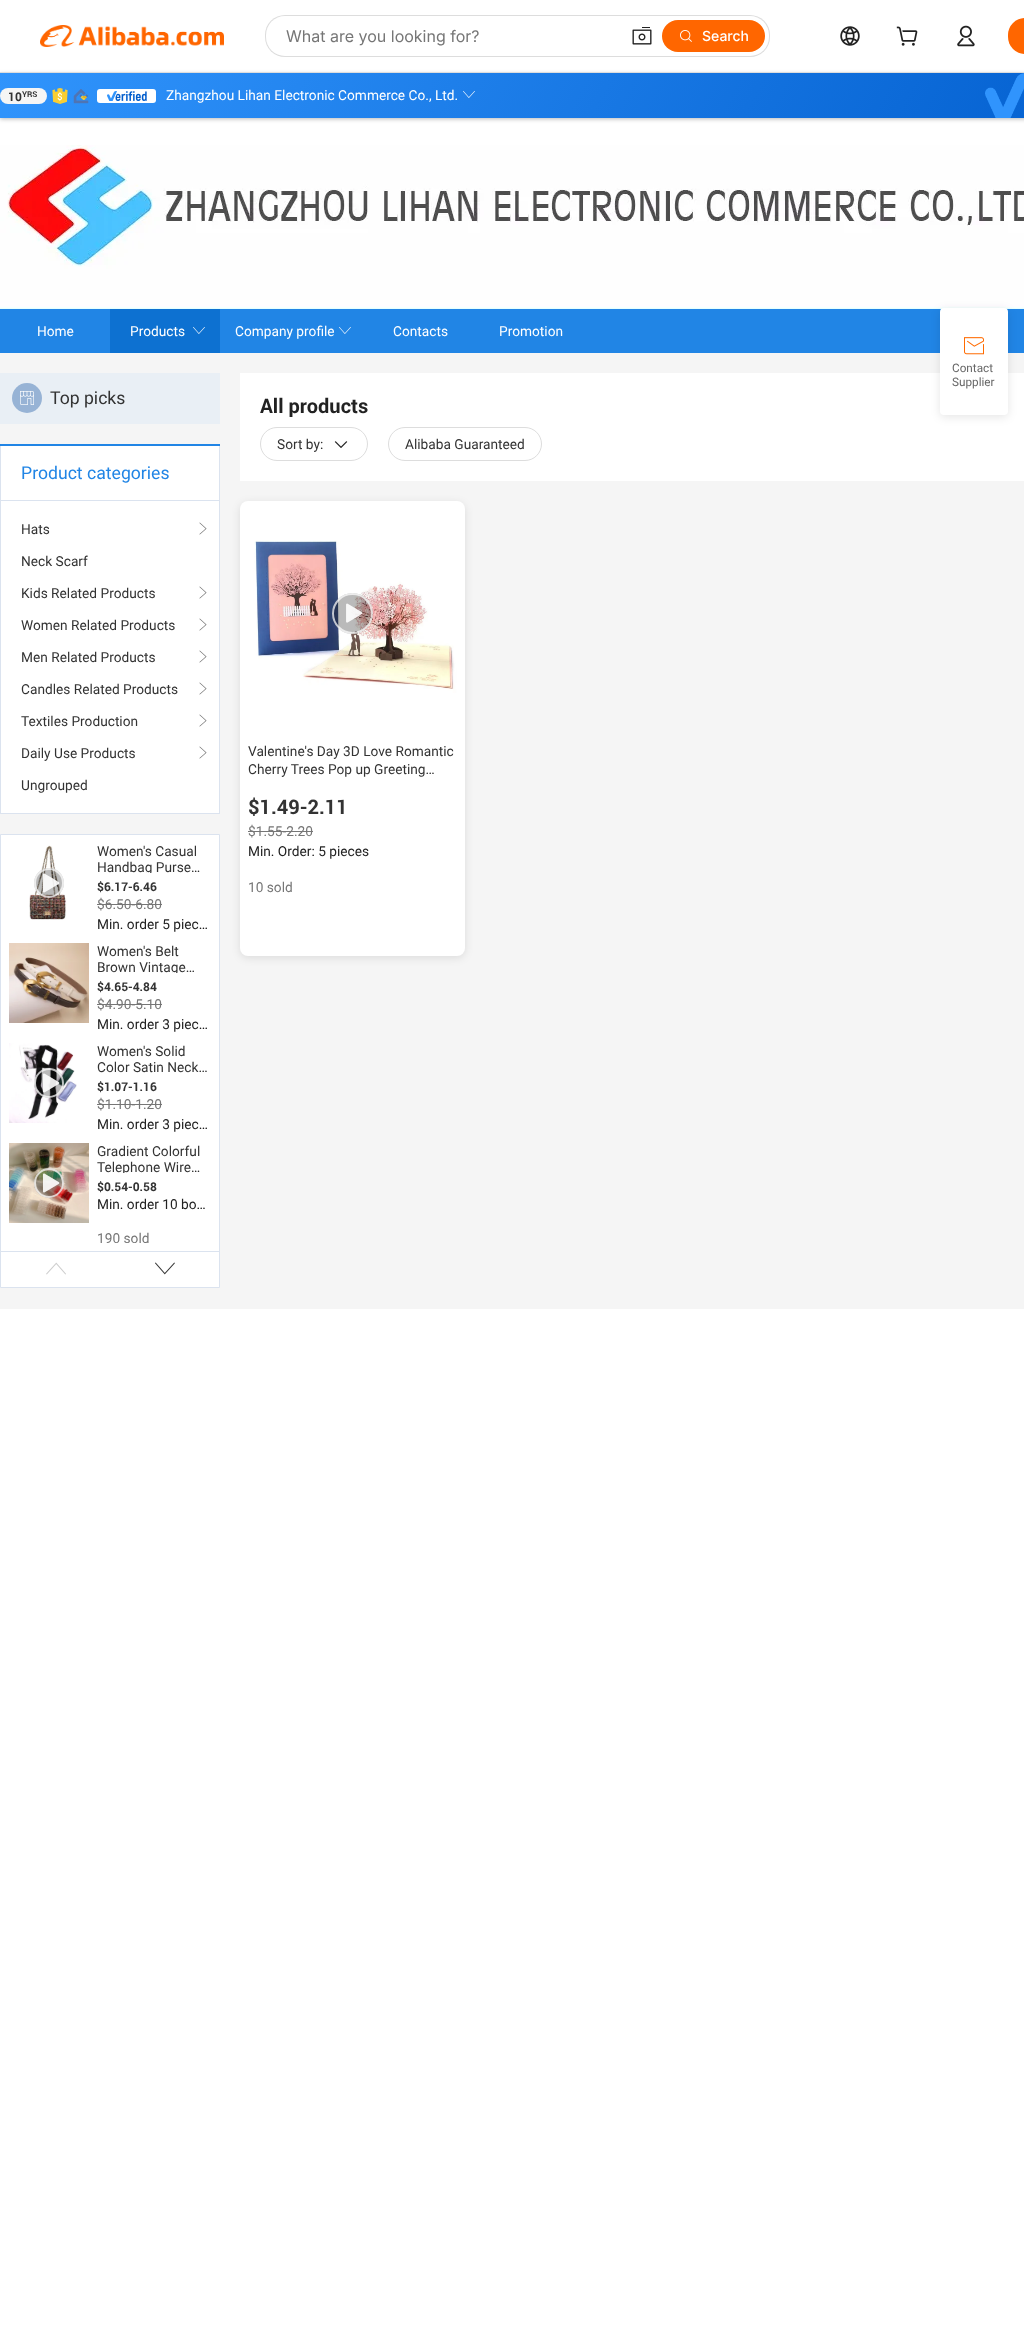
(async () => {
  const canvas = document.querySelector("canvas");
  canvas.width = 1024;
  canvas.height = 2333;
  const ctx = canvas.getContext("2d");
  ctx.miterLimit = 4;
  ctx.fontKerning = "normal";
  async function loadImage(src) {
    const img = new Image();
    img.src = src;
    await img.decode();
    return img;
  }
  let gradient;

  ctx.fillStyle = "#ffffff";
  ctx.fillRect(0, 0, 1024, 2333);
  ctx.fillStyle = "rgba(0, 0, 0, 0.28)";
  ctx.filter = "blur(2px)";
  ctx.beginPath();
  ctx.rect(0, 74, 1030, 45);
  ctx.fill();
  ctx.filter = "none";
  ctx.fillStyle = "#dddddd";
  ctx.fillRect(0, 72, 1024, 1);
  ctx.drawImage(await loadImage("img/1.png"), 40, 25, 184, 22);
  ctx.beginPath();
  ctx.roundRect(265, 15, 505, 42, 20);
  ctx.fill();
  ctx.fillStyle = "#ffffff";
  ctx.beginPath();
  ctx.roundRect(266, 16, 503, 40, 19);
  ctx.fill();
  ctx.drawImage(await loadImage("img/2.png"), 632, 27, 20, 18);
  ctx.fillStyle = "#ff6600";
  ctx.beginPath();
  ctx.roundRect(662, 20, 103, 32, 16);
  ctx.fill();
  ctx.drawImage(await loadImage("img/3.png"), 680, 30, 12, 12);
  ctx.drawImage(await loadImage("img/4.png"), 840, 26, 20, 20);
  ctx.drawImage(await loadImage("img/5.png"), 896, 26, 22, 20);
  ctx.drawImage(await loadImage("img/6.png"), 957, 25, 18, 22);
  ctx.beginPath();
  ctx.roundRect(1008, 18, 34, 36, 18);
  ctx.fill();
  gradient = ctx.createLinearGradient(123, -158, 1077, 349);
  gradient.addColorStop(0, "#3094fc");
  gradient.addColorStop(1, "#005ccc");
  ctx.fillStyle = gradient;
  ctx.fillRect(0, 73, 1024, 45);
  ctx.fillStyle = "#f5f5f5";
  ctx.beginPath();
  ctx.roundRect(0, 88, 47, 16, 8);
  ctx.fill();
  ctx.drawImage(await loadImage("img/7.png"), 52, 88, 16, 16);
  ctx.drawImage(await loadImage("img/8.png"), 73, 89, 16, 15);
  ctx.fillStyle = "#ffffff";
  ctx.beginPath();
  ctx.roundRect(97, 89, 59, 14, 3);
  ctx.fill();
  ctx.drawImage(await loadImage("img/9.png"), 107, 91, 40, 10);
  ctx.drawImage(await loadImage("img/10.png"), 463, 91, 12, 7);
  ctx.drawImage(await loadImage("img/11.png"), 985, 73, 39, 45);
  ctx.drawImage(await loadImage("img/12.png"), 0, 145, 1024, 164);
  ctx.fillStyle = "#2185e5";
  ctx.fillRect(0, 309, 1024, 44);
  ctx.fillStyle = "#0d71d1";
  ctx.fillRect(110, 309, 110, 44);
  ctx.drawImage(await loadImage("img/13.png"), 193, 327, 12, 7);
  ctx.drawImage(await loadImage("img/14.png"), 339, 327, 12, 7);
  ctx.fillStyle = "#f5f5f5";
  ctx.fillRect(0, 353, 1024, 956);
  ctx.fillStyle = "#e9eff5";
  ctx.fillRect(0, 373, 220, 51);
  ctx.fillStyle = "#97b3d5";
  ctx.beginPath();
  ctx.arc(27, 398, 15, 0, Math.PI * 2);
  ctx.fill();
  ctx.drawImage(await loadImage("img/15.png"), 20, 391, 14, 14);
  for (const [x, y, w, h, color] of [
    [1, 446, 218, 367, "#ffffff"],
    [0, 444, 220, 2, "#2185e5"],
    [219, 446, 1, 368, "#dbe3ef"],
    [0, 813, 220, 1, "#dbe3ef"],
    [0, 446, 1, 368, "#dbe3ef"],
    [1, 500, 218, 1, "#dbe3ef"],
  ]) {
    ctx.fillStyle = color;
    ctx.fillRect(x, y, w, h);
  }
  ctx.drawImage(await loadImage("img/16.png"), 199, 522, 8, 13);
  ctx.drawImage(await loadImage("img/16.png"), 199, 586, 8, 13);
  ctx.drawImage(await loadImage("img/16.png"), 199, 618, 8, 13);
  ctx.drawImage(await loadImage("img/16.png"), 199, 650, 8, 13);
  ctx.drawImage(await loadImage("img/16.png"), 199, 682, 8, 13);
  ctx.drawImage(await loadImage("img/16.png"), 199, 714, 8, 13);
  ctx.drawImage(await loadImage("img/16.png"), 199, 746, 8, 13);
  ctx.fillStyle = "#ffffff";
  ctx.beginPath();
  ctx.rect(0.5, 834.5, 219, 453);
  ctx.fill();
  ctx.strokeStyle = "#dbe3ef";
  ctx.stroke();
  ctx.drawImage(await loadImage("img/17.png"), 29, 845, 38, 75);
  ctx.fillStyle = "rgba(0, 0, 0, 0.27)";
  ctx.beginPath();
  ctx.arc(49, 883, 15, 0, Math.PI * 2);
  ctx.fill();
  ctx.beginPath();
  ctx.arc(49, 883, 14, 0, Math.PI * 2);
  ctx.strokeStyle = "rgba(255, 255, 255, 0.72)";
  ctx.lineWidth = 2;
  ctx.stroke();
  ctx.drawImage(await loadImage("img/18.png"), 42, 873, 18, 20);
  ctx.fillStyle = "#767676";
  ctx.fillRect(97, 904, 65, 1);
  ctx.drawImage(await loadImage("img/19.png"), 9, 943, 80, 80);
  ctx.fillRect(97, 1004, 65, 1);
  ctx.drawImage(await loadImage("img/20.png"), 9, 1043, 68, 80);
  ctx.fillStyle = "rgba(0, 0, 0, 0.27)";
  ctx.beginPath();
  ctx.arc(49, 1083, 15, 0, Math.PI * 2);
  ctx.fill();
  ctx.beginPath();
  ctx.arc(49, 1083, 14, 0, Math.PI * 2);
  ctx.stroke();
  ctx.drawImage(await loadImage("img/21.png"), 42, 1073, 18, 20);
  ctx.fillStyle = "#767676";
  ctx.fillRect(97, 1104, 65, 1);
  ctx.drawImage(await loadImage("img/22.png"), 9, 1143, 80, 80);
  ctx.fillStyle = "rgba(0, 0, 0, 0.27)";
  ctx.beginPath();
  ctx.arc(49, 1183, 15, 0, Math.PI * 2);
  ctx.fill();
  ctx.beginPath();
  ctx.arc(49, 1183, 14, 0, Math.PI * 2);
  ctx.stroke();
  ctx.drawImage(await loadImage("img/23.png"), 42, 1173, 18, 20);
  ctx.fillStyle = "#dbe3ef";
  ctx.fillRect(1, 1251, 218, 1);
  ctx.drawImage(await loadImage("img/24.png"), 46, 1262, 20, 13);
  ctx.drawImage(await loadImage("img/25.png"), 155, 1262, 20, 13);
  ctx.fillStyle = "#ffffff";
  ctx.fillRect(240, 373, 784, 108);
  ctx.beginPath();
  ctx.roundRect(260.5, 427.5, 107, 33, 16.5);
  ctx.strokeStyle = "#dddddd";
  ctx.lineWidth = 1;
  ctx.stroke();
  ctx.drawImage(await loadImage("img/26.png"), 334, 441, 14, 7);
  ctx.beginPath();
  ctx.roundRect(388.5, 427.5, 153, 33, 16.5);
  ctx.stroke();
  ctx.fillStyle = "rgba(0, 0, 0, 0.1)";
  ctx.filter = "blur(4px)";
  ctx.beginPath();
  ctx.roundRect(240, 503, 225, 455, 8);
  ctx.fill();
  ctx.filter = "none";
  ctx.fillStyle = "#ffffff";
  ctx.beginPath();
  ctx.roundRect(240, 501, 225, 455, 8);
  ctx.fill();
  ctx.drawImage(await loadImage("img/27.png"), 248, 509, 209, 209);
  ctx.fillStyle = "rgba(0, 0, 0, 0.27)";
  ctx.beginPath();
  ctx.arc(352.5, 613.5, 20.5, 0, Math.PI * 2);
  ctx.fill();
  ctx.beginPath();
  ctx.arc(352.5, 613.5, 19.5, 0, Math.PI * 2);
  ctx.strokeStyle = "rgba(255, 255, 255, 0.72)";
  ctx.lineWidth = 2;
  ctx.stroke();
  ctx.drawImage(await loadImage("img/28.png"), 346, 603, 17, 20);
  ctx.fillStyle = "#767676";
  ctx.fillRect(248, 831, 65, 1);
  ctx.fillStyle = "rgba(0, 0, 0, 0.1)";
  ctx.filter = "blur(5px)";
  ctx.beginPath();
  ctx.roundRect(940, 310, 68, 107, 4);
  ctx.fill();
  ctx.filter = "none";
  ctx.fillStyle = "#ffffff";
  ctx.beginPath();
  ctx.roundRect(940, 308, 68, 107, 4);
  ctx.fill();
  ctx.drawImage(await loadImage("img/29.png"), 964, 337, 20, 18);
  ctx.font = "16px Inter";
  ctx.fillStyle = "#767676";
  ctx.fillText("What are you looking for?", 286, 42);
  ctx.font = "500 14px Inter";
  ctx.fillStyle = "#ffffff";
  ctx.fillText("Search", 702, 41);
  ctx.font = "bold 12px Roboto";
  ctx.fillStyle = "#333333";
  ctx.fillText("10", 8, 101);
  ctx.font = "bold 8px Roboto";
  ctx.fillText("YRS", 22, 97);
  ctx.font = "14px Roboto";
  ctx.fillStyle = "#ffffff";
  for (const [text, x, y] of [
    ["Zhangzhou Lihan Electronic Commerce Co., Ltd.", 166, 100],
    ["Home", 37, 336],
    ["Products", 130, 336],
    ["Company profile", 235, 336],
    ["Contacts", 393, 336],
    ["Promotion", 499, 336],
  ]) {
    ctx.fillText(text, x, y);
  }
  ctx.font = "18px Roboto";
  ctx.fillStyle = "#333333";
  ctx.fillText("Top picks", 50, 404);
  ctx.fillStyle = "#2185e5";
  ctx.fillText("Product categories", 21, 479);
  ctx.font = "14px Roboto";
  ctx.fillStyle = "#333333";
  for (const [text, x, y] of [
    ["Hats", 21, 534],
    ["Neck Scarf", 21, 566],
    ["Kids Related Products", 21, 598],
    ["Women Related Products", 21, 630],
    ["Men Related Products", 21, 662],
    ["Candles Related Products", 21, 694],
    ["Textiles Production", 21, 726],
    ["Daily Use Products", 21, 758],
    ["Ungrouped", 21, 790],
    ["Women's Casual", 97, 856],
  ]) {
    ctx.fillText(text, x, y);
  }
  ctx.save();
  ctx.beginPath();
  ctx.rect(97, 843, 114, 30);
  ctx.clip();
  ctx.fillText("Handbag Purse…", 97, 872);
  ctx.restore();
  ctx.font = "bold 12px Roboto";
  ctx.fillText("$6.17-6.46", 97, 891);
  ctx.font = "14px Roboto";
  ctx.fillStyle = "#767676";
  ctx.fillText("$6.50-6.80", 97, 909);
  ctx.fillStyle = "#222222";
  ctx.fillText("Min. order 5 piec…", 97, 929);
  ctx.fillStyle = "#333333";
  ctx.fillText("Women's Belt", 97, 956);
  ctx.save();
  ctx.beginPath();
  ctx.rect(97, 943, 114, 30);
  ctx.clip();
  ctx.fillText("Brown Vintage…", 97, 972);
  ctx.restore();
  ctx.font = "bold 12px Roboto";
  ctx.fillText("$4.65-4.84", 97, 991);
  ctx.font = "14px Roboto";
  ctx.fillStyle = "#767676";
  ctx.fillText("$4.90-5.10", 97, 1009);
  ctx.fillStyle = "#222222";
  ctx.fillText("Min. order 3 piec…", 97, 1029);
  ctx.fillStyle = "#333333";
  ctx.fillText("Women's Solid", 97, 1056);
  ctx.fillText("Color Satin Neck…", 97, 1072);
  ctx.font = "bold 12px Roboto";
  ctx.fillText("$1.07-1.16", 97, 1091);
  ctx.font = "14px Roboto";
  ctx.fillStyle = "#767676";
  ctx.fillText("$1.10-1.20", 97, 1109);
  ctx.fillStyle = "#222222";
  ctx.fillText("Min. order 3 piec…", 97, 1129);
  ctx.fillStyle = "#333333";
  ctx.fillText("Gradient Colorful", 97, 1156);
  ctx.save();
  ctx.beginPath();
  ctx.rect(97, 1143, 114, 30);
  ctx.clip();
  ctx.fillText("Telephone Wire…", 97, 1172);
  ctx.restore();
  ctx.font = "bold 12px Roboto";
  ctx.fillText("$0.54-0.58", 97, 1191);
  ctx.font = "14px Roboto";
  ctx.fillStyle = "#222222";
  ctx.fillText("Min. order 10 bo…", 97, 1209);
  ctx.save();
  ctx.beginPath();
  ctx.rect(97, 1143, 114, 100);
  ctx.clip();
  ctx.fillStyle = "#767676";
  ctx.fillText("190 sold", 97, 1243);
  ctx.restore();
  ctx.font = "bold 20px Roboto";
  ctx.fillText("All products", 260, 413);
  ctx.font = "14px Roboto";
  ctx.fillStyle = "#333333";
  for (const [text, x, y] of [
    ["Sort by:", 277, 449],
    ["Alibaba Guaranteed", 405, 449],
    ["Valentine's Day 3D Love Romantic", 248, 756],
    ["Cherry Trees Pop up Greeting…", 248, 774],
  ]) {
    ctx.fillText(text, x, y);
  }
  ctx.font = "bold 20px Roboto";
  ctx.fillText("$1.49-2.11", 248, 814);
  ctx.font = "14px Roboto";
  ctx.fillStyle = "#767676";
  ctx.fillText("$1.55-2.20", 248, 836);
  ctx.fillStyle = "#222222";
  ctx.fillText("Min. Order: 5 pieces", 248, 856);
  ctx.fillStyle = "#767676";
  ctx.fillText("10 sold", 248, 892);
  ctx.font = "12px Roboto";
  ctx.fillStyle = "#666666";
  ctx.fillText("Contact", 952, 372);
  ctx.fillText("Supplier", 952, 386);
})();
